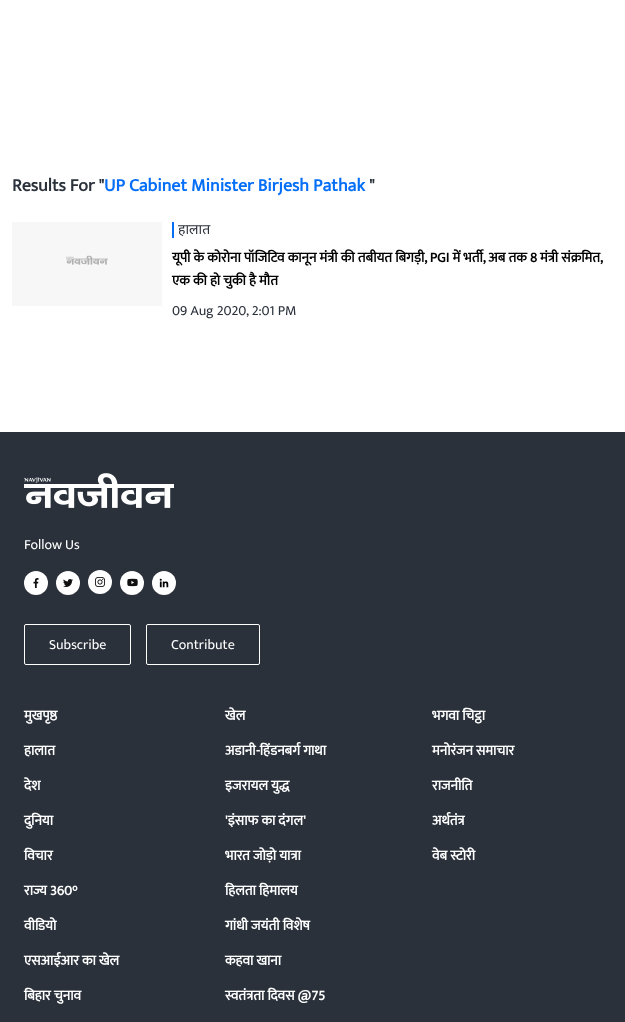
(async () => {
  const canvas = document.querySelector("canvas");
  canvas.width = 625;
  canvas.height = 1022;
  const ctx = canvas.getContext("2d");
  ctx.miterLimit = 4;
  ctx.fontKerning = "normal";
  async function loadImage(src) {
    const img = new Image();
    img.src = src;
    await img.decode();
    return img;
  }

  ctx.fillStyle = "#ffffff";
  ctx.fillRect(0, 0, 625, 1022);
  ctx.drawImage(await loadImage("img/1.png"), 12, 222, 150, 84);
  ctx.fillStyle = "#056ff7";
  ctx.fillRect(172, 222, 2, 16);
  ctx.fillStyle = "#2a313b";
  ctx.fillRect(0, 432, 625, 590);
  ctx.drawImage(await loadImage("img/2.png"), 24, 473, 150, 35);
  ctx.fillStyle = "#ffffff";
  ctx.beginPath();
  ctx.arc(36, 583, 12, 0, Math.PI * 2);
  ctx.fill();
  ctx.drawImage(await loadImage("img/3.png"), 33, 578, 6, 10);
  ctx.beginPath();
  ctx.arc(68, 583, 12, 0, Math.PI * 2);
  ctx.fill();
  ctx.drawImage(await loadImage("img/4.png"), 63, 579, 10, 8);
  ctx.beginPath();
  ctx.arc(100, 582, 12, 0, Math.PI * 2);
  ctx.fill();
  ctx.drawImage(await loadImage("img/5.png"), 95, 577, 10, 10);
  ctx.beginPath();
  ctx.arc(132, 583, 12, 0, Math.PI * 2);
  ctx.fill();
  ctx.drawImage(await loadImage("img/6.png"), 127, 578, 11, 9);
  ctx.beginPath();
  ctx.arc(164, 583, 12, 0, Math.PI * 2);
  ctx.fill();
  ctx.drawImage(await loadImage("img/7.png"), 159, 578, 10, 10);
  ctx.beginPath();
  ctx.roundRect(24.5, 624.5, 106, 40, 1.5);
  ctx.strokeStyle = "#ffffff";
  ctx.stroke();
  ctx.beginPath();
  ctx.roundRect(146.5, 624.5, 113, 40, 1.5);
  ctx.stroke();
  ctx.font = "bold 18px Ek Mukta";
  ctx.fillStyle = "#2a313b";
  ctx.fillText("Results For \"", 12, 191);
  ctx.fillStyle = "#056ff7";
  ctx.fillText("UP Cabinet Minister Birjesh Pathak", 104, 191);
  ctx.fillStyle = "#2a313b";
  ctx.fillText("\"", 369, 191);
  ctx.font = "14px Noto Sans";
  ctx.fillText("हालात", 178, 234);
  ctx.font = "bold 14px Ek Mukta";
  ctx.fillStyle = "#000000";
  ctx.fillText("यूपी के कोरोना पॉजिटिव कानून मंत्री की तबीयत बिगड़ी, PGI में भर्ती, अब तक 8 मंत्री संक्रमित,", 172, 262);
  ctx.fillText("एक की हो चुकी है मौत", 172, 285);
  ctx.font = "14px Ek Mukta";
  ctx.fillStyle = "#2a313b";
  ctx.fillText("09 Aug 2020, 2:01 PM", 172, 315);
  ctx.fillStyle = "#ffffff";
  for (const [text, x, y] of [
    ["Follow Us", 24, 549],
    ["Subscribe", 49, 649],
    ["Contribute", 171, 649],
  ]) {
    ctx.fillText(text, x, y);
  }
  ctx.font = "bold 14px Ek Mukta";
  for (const [text, x, y] of [
    ["मुखपृष्ठ", 24, 720],
    ["खेल", 225, 720],
    ["भगवा चिट्ठा", 432, 720],
    ["हालात", 24, 755],
    ["अडानी-हिंडनबर्ग गाथा", 225, 755],
    ["मनोरंजन समाचार", 432, 755],
    ["देश", 24, 790],
    ["इजरायल युद्ध", 225, 790],
    ["राजनीति", 432, 790],
    ["दुनिया", 24, 825],
    ["'इंसाफ का दंगल'", 225, 825],
    ["अर्थतंत्र", 432, 825],
    ["विचार", 24, 860],
    ["भारत जोड़ो यात्रा", 225, 860],
    ["वेब स्टोरी", 432, 860],
    ["राज्य 360°", 24, 895],
    ["हिलता हिमालय", 225, 895],
    ["वीडियो", 24, 930],
    ["गांधी जयंती विशेष", 225, 930],
    ["एसआईआर का खेल", 24, 965],
    ["कहवा खाना", 225, 965],
    ["बिहार चुनाव", 24, 1000],
    ["स्वतंत्रता दिवस @75", 225, 1000],
  ]) {
    ctx.fillText(text, x, y);
  }
})();
